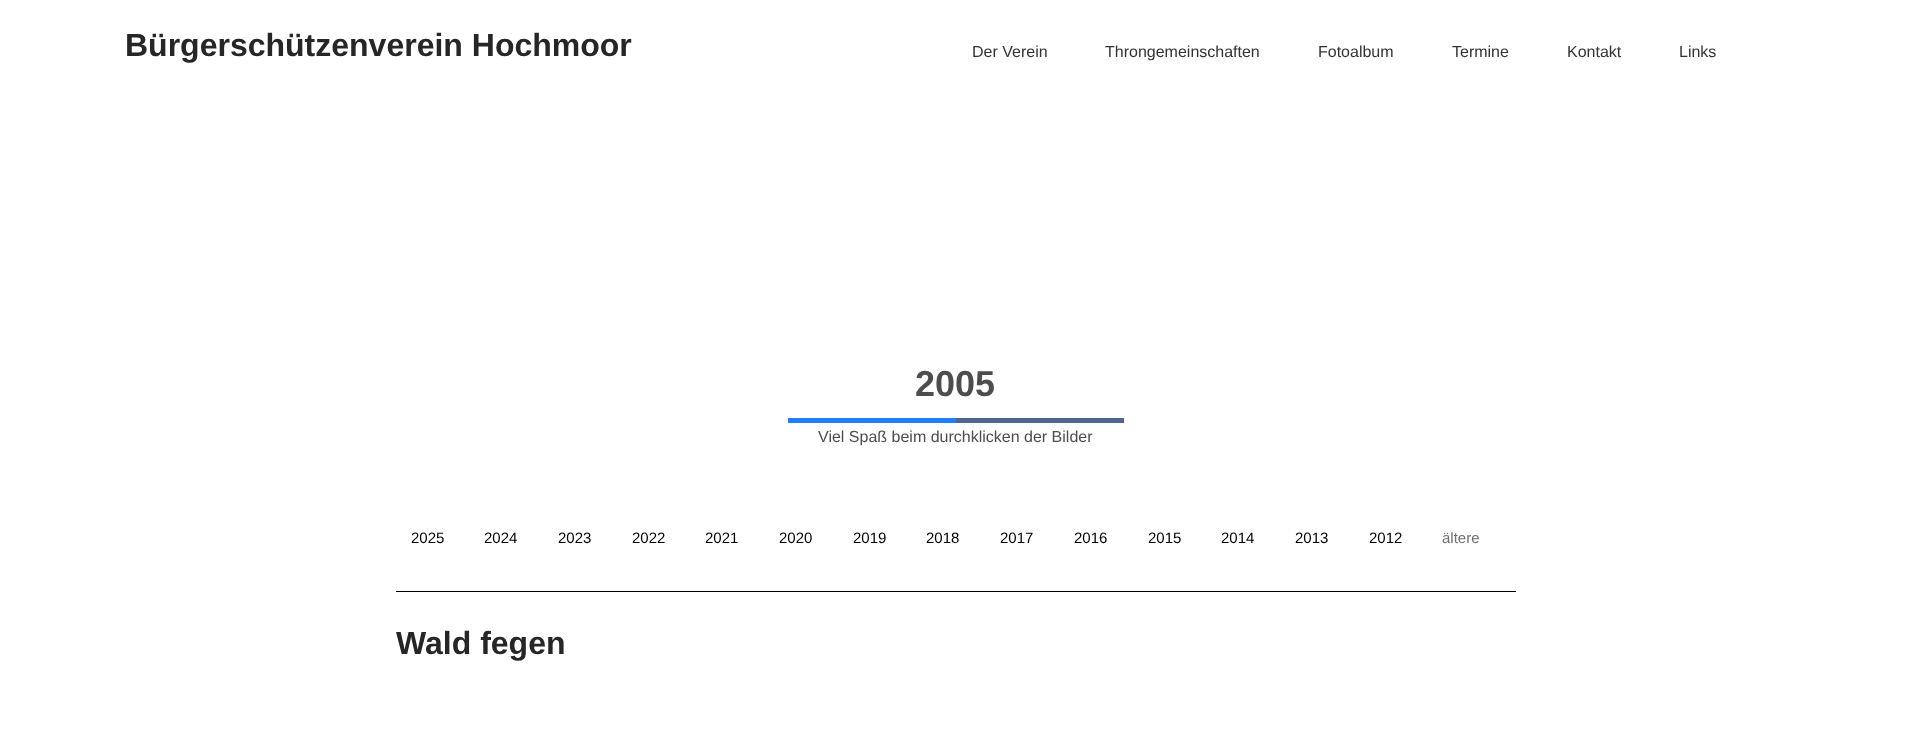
(async () => {
  const canvas = document.querySelector("canvas");
  canvas.width = 1911;
  canvas.height = 737;
  const ctx = canvas.getContext("2d");
  ctx.miterLimit = 4;
  ctx.fontKerning = "normal";

  ctx.fillStyle = "#ffffff";
  ctx.fillRect(0, 0, 1911, 737);
  for (const [x, y, w, h, color] of [
    [788, 418, 168, 5, "#207eff"],
    [956, 418, 168, 5, "#4f6592"],
    [396, 591, 1120, 1, "#000000"],
  ]) {
    ctx.fillStyle = color;
    ctx.fillRect(x, y, w, h);
  }
  ctx.font = "bold 32px Liberation Sans";
  ctx.fillStyle = "#272626";
  ctx.fillText("Bürgerschützenverein Hochmoor", 125, 56);
  ctx.font = "16px Liberation Sans";
  ctx.fillStyle = "#333333";
  for (const [text, x, y] of [
    ["Der Verein", 972, 57],
    ["Throngemeinschaften", 1105, 57],
    ["Fotoalbum", 1318, 57],
    ["Termine", 1452, 57],
    ["Kontakt", 1567, 57],
    ["Links", 1679, 57],
  ]) {
    ctx.fillText(text, x, y);
  }
  ctx.font = "bold 36px Liberation Sans";
  ctx.fillStyle = "#4d4d4d";
  ctx.fillText("2005", 915, 396);
  ctx.font = "16px Liberation Sans";
  ctx.fillText("Viel Spaß beim durchklicken der Bilder", 818, 442);
  ctx.font = "15px Liberation Sans";
  ctx.fillStyle = "#000000";
  for (const [text, x, y] of [
    ["2025", 411, 543],
    ["2024", 484, 543],
    ["2023", 558, 543],
    ["2022", 632, 543],
    ["2021", 705, 543],
    ["2020", 779, 543],
    ["2019", 853, 543],
    ["2018", 926, 543],
    ["2017", 1000, 543],
    ["2016", 1074, 543],
    ["2015", 1148, 543],
    ["2014", 1221, 543],
    ["2013", 1295, 543],
    ["2012", 1369, 543],
  ]) {
    ctx.fillText(text, x, y);
  }
  ctx.fillStyle = "#707070";
  ctx.fillText("ältere", 1442, 543);
  ctx.font = "bold 32px Liberation Sans";
  ctx.fillStyle = "#272626";
  ctx.fillText("Wald fegen", 396, 654);
})();
